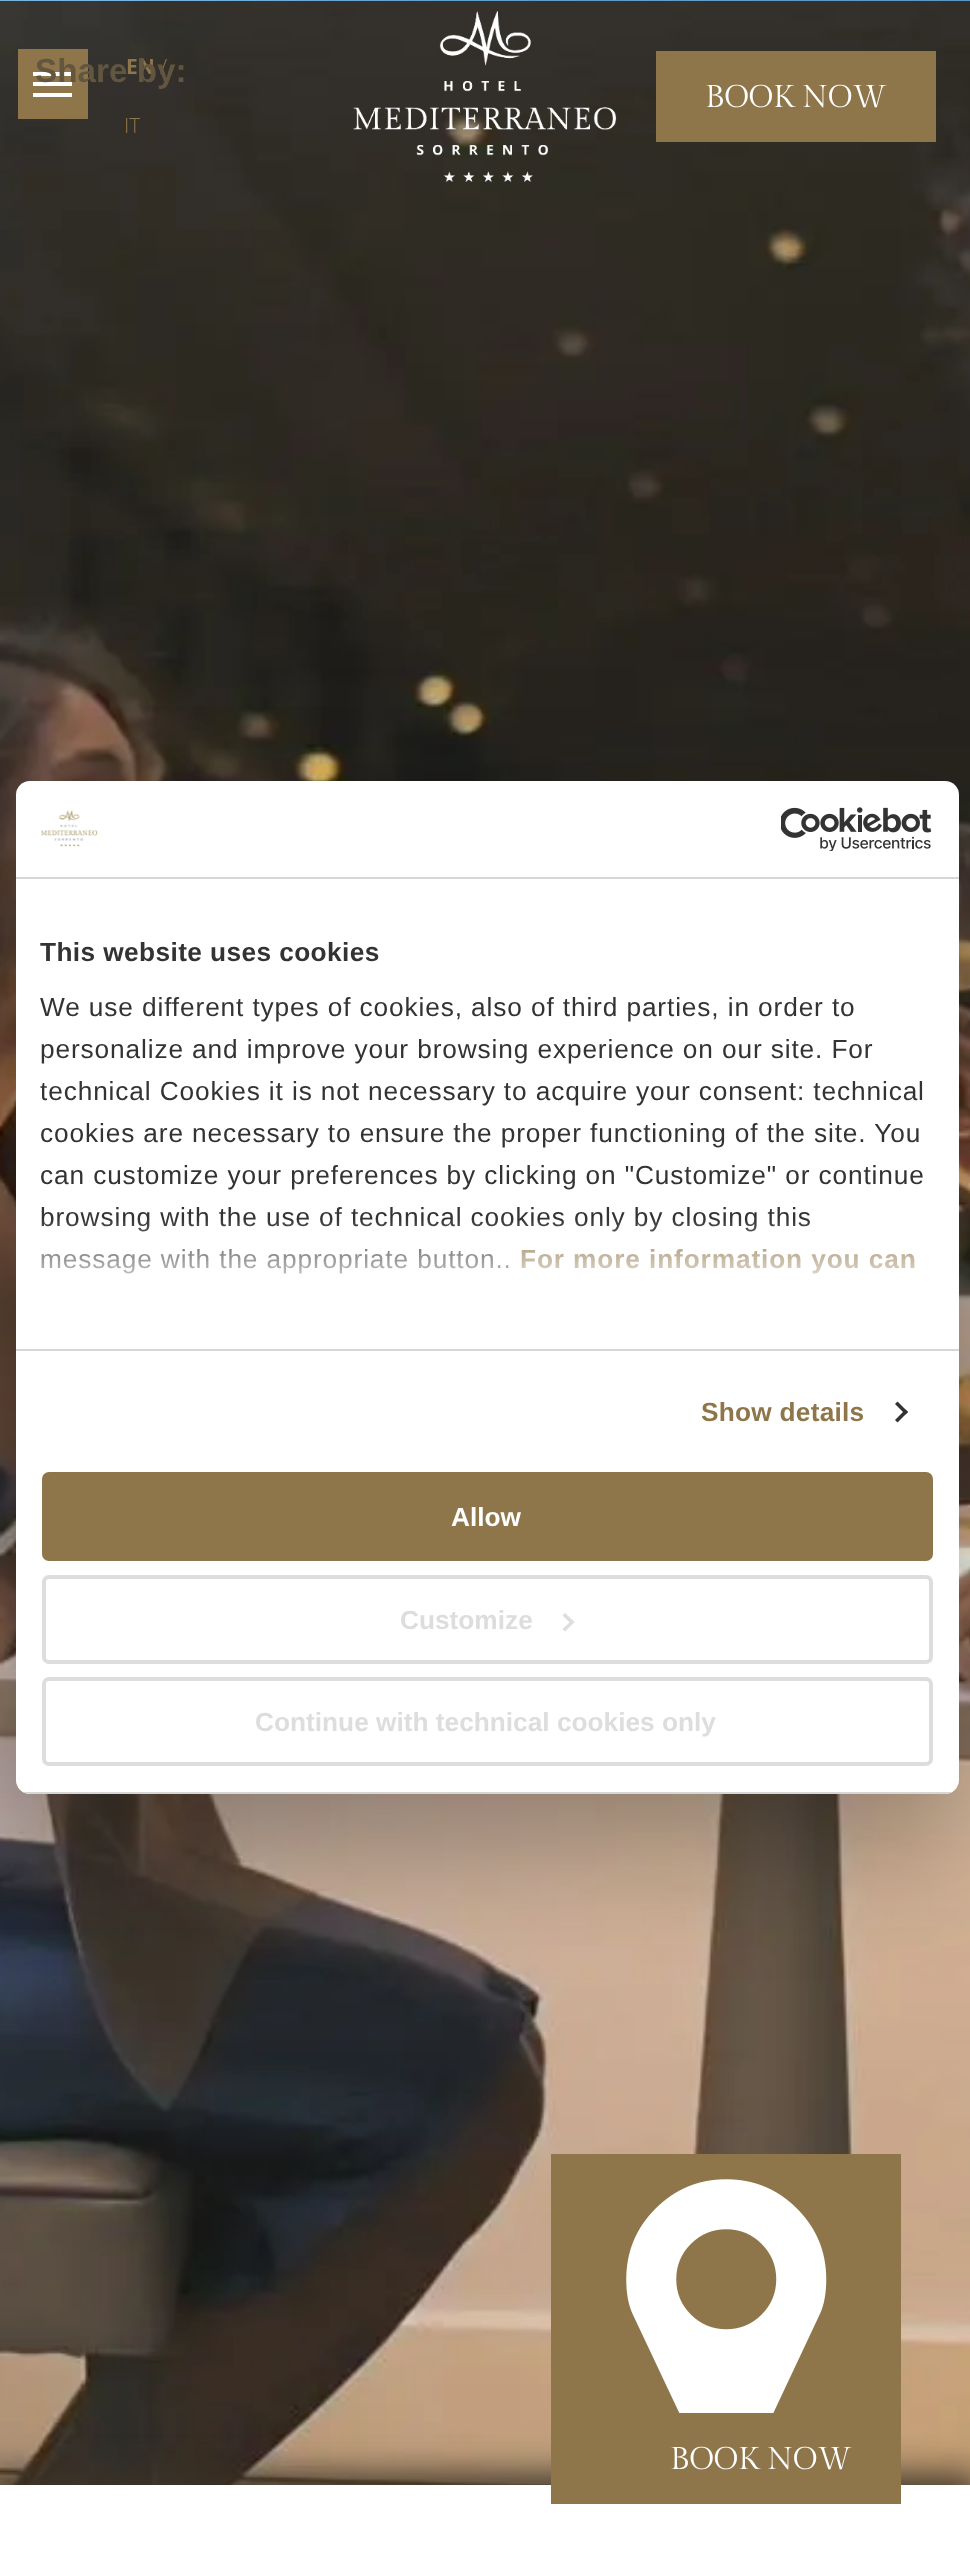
(async () => {
  const canvas = document.querySelector("canvas");
  canvas.width = 970;
  canvas.height = 2574;
  const ctx = canvas.getContext("2d");
  ctx.miterLimit = 4;
  ctx.fontKerning = "normal";
  async function loadImage(src) {
    const img = new Image();
    img.src = src;
    await img.decode();
    return img;
  }
  let gradient, path;

  ctx.fillStyle = "#ffffff";
  ctx.fillRect(0, 0, 970, 2574);
  ctx.drawImage(await loadImage("img/1.png"), 0, 0, 970, 1);
  ctx.drawImage(await loadImage("img/2.png"), 0, 1, 970, 2484);
  for (const [x, y, w, h, color] of [
    [18, 49, 70, 70, "#8e764a"],
    [33, 72, 39, 4, "#ffffff"],
    [33, 82, 39, 4, "#ffffff"],
    [33, 93, 39, 4, "#ffffff"],
  ]) {
    ctx.fillStyle = color;
    ctx.fillRect(x, y, w, h);
  }
  ctx.drawImage(await loadImage("img/3.png"), 353, 11, 264, 171);
  ctx.fillStyle = "#8e764a";
  ctx.fillRect(656, 51, 280, 91);
  ctx.fillStyle = "#3c3327";
  ctx.filter = "blur(17.5px)";
  ctx.beginPath();
  ctx.rect(-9, 2475, 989, 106);
  ctx.fill();
  ctx.filter = "none";
  ctx.fillStyle = "#ffffff";
  ctx.fillRect(0, 2485, 970, 89);
  ctx.fillStyle = "#8e764a";
  ctx.fillRect(551, 2154, 350, 350);
  ctx.drawImage(await loadImage("img/4.png"), 626, 2179, 201, 234);
  ctx.fillStyle = "rgba(0, 0, 0, 0.3)";
  ctx.filter = "blur(59.5px)";
  ctx.beginPath();
  ctx.roundRect(16, 837, 943, 1013, 14);
  ctx.fill();
  ctx.filter = "none";
  ctx.fillStyle = "#ffffff";
  ctx.beginPath();
  ctx.roundRect(16, 781, 943, 1013, 14);
  ctx.fill();
  ctx.fillStyle = "#d6d6d6";
  ctx.fillRect(16, 877, 943, 2);
  ctx.drawImage(await loadImage("img/5.png"), 41, 810, 57, 37);
  ctx.drawImage(await loadImage("img/6.png"), 781, 807, 151, 44);
  ctx.fillRect(16, 1349, 943, 2);
  ctx.fillStyle = "#333333";
  path = new Path2D("M897.5 1401.5L908 1412L905.5 1414.5L895 1404Z");
  ctx.fill(path);
  path = new Path2D("M905.5 1409.5L908 1412L897.5 1422.5L895 1420Z");
  ctx.fill(path);
  ctx.save();
  ctx.beginPath();
  ctx.roundRect(16, 781, 943, 1013, 14);
  ctx.clip();
  ctx.fillStyle = "#d6d6d6";
  ctx.fillRect(16, 1792, 943, 2);
  ctx.restore();
  ctx.fillStyle = "#8e764a";
  ctx.beginPath();
  ctx.roundRect(44, 1474, 887, 85, 5);
  ctx.fill();
  ctx.strokeStyle = "#8e764a";
  ctx.lineWidth = 4;
  ctx.stroke();
  ctx.beginPath();
  ctx.roundRect(44, 1577, 887, 85, 5);
  ctx.strokeStyle = "#dddddd";
  ctx.stroke();
  ctx.fillStyle = "#dddddd";
  path = new Path2D("M565 1613L574.5 1622L572 1624.5L562.5 1615.5Z");
  ctx.fill(path);
  path = new Path2D("M572 1620L574.5 1622L565 1631.5L562.5 1629Z");
  ctx.fill(path);
  ctx.beginPath();
  ctx.roundRect(44, 1679, 887, 85, 5);
  ctx.stroke();
  ctx.font = "bold 21px Open Sans";
  ctx.fillStyle = "#8e764a";
  ctx.fillText("EN", 126, 74);
  ctx.font = "300 21px Open Sans";
  ctx.fillText("/", 160, 74);
  ctx.font = "bold 33.25px Liberation Sans";
  ctx.fillStyle = "#625641";
  ctx.fillText("Share by:", 35, 82);
  ctx.font = "300 21px Open Sans";
  ctx.fillStyle = "#8e764a";
  ctx.fillText("IT", 124, 133);
  ctx.font = "31.5px Gilda Display";
  ctx.fillStyle = "#ffffff";
  ctx.fillText("BOOK NOW", 705, 107);
  ctx.fillText("BOOK NOW", 670, 2469);
  ctx.letterSpacing = "0.4px";
  ctx.font = "bold 26.25px Liberation Sans";
  ctx.fillStyle = "#333333";
  ctx.fillText("This website uses cookies", 40, 961);
  ctx.letterSpacing = "0.88px";
  ctx.font = "26.25px Liberation Sans";
  for (const [text, x, y] of [
    ["We use different types of cookies, also of third parties, in order to", 40, 1016],
    ["personalize and improve your browsing experience on our site. For", 40, 1058],
    ["technical Cookies it is not necessary to acquire your consent: technical", 40, 1100],
    ["cookies are necessary to ensure the proper functioning of the site. You", 40, 1142],
    ["can customize your preferences by clicking on \"Customize\" or continue", 40, 1184],
    ["browsing with the use of technical cookies only by closing this", 40, 1226],
    ["message with the appropriate button..", 40, 1268],
  ]) {
    ctx.fillText(text, x, y);
  }
  ctx.font = "bold 26.25px Liberation Sans";
  ctx.fillStyle = "#8e764a";
  ctx.fillText("For more information you can", 520, 1268);
  gradient = ctx.createLinearGradient(475, 1350, 475, 1218);
  gradient.addColorStop(0, "#ffffff");
  gradient.addColorStop(0.5, "rgba(255, 255, 255, 0.8)");
  gradient.addColorStop(1, "rgba(255, 255, 255, 0)");
  ctx.fillStyle = gradient;
  ctx.fillRect(42, 1220, 872, 54);
  ctx.letterSpacing = "0.25px";
  ctx.fillStyle = "#8e764a";
  ctx.fillText("Show details", 701, 1421);
  ctx.letterSpacing = "0px";
  ctx.fillStyle = "#ffffff";
  ctx.fillText("Allow", 451, 1526);
  ctx.fillStyle = "#dddddd";
  ctx.fillText("Customize", 400, 1629);
  ctx.fillText("Continue with technical cookies only", 255, 1731);
})();
